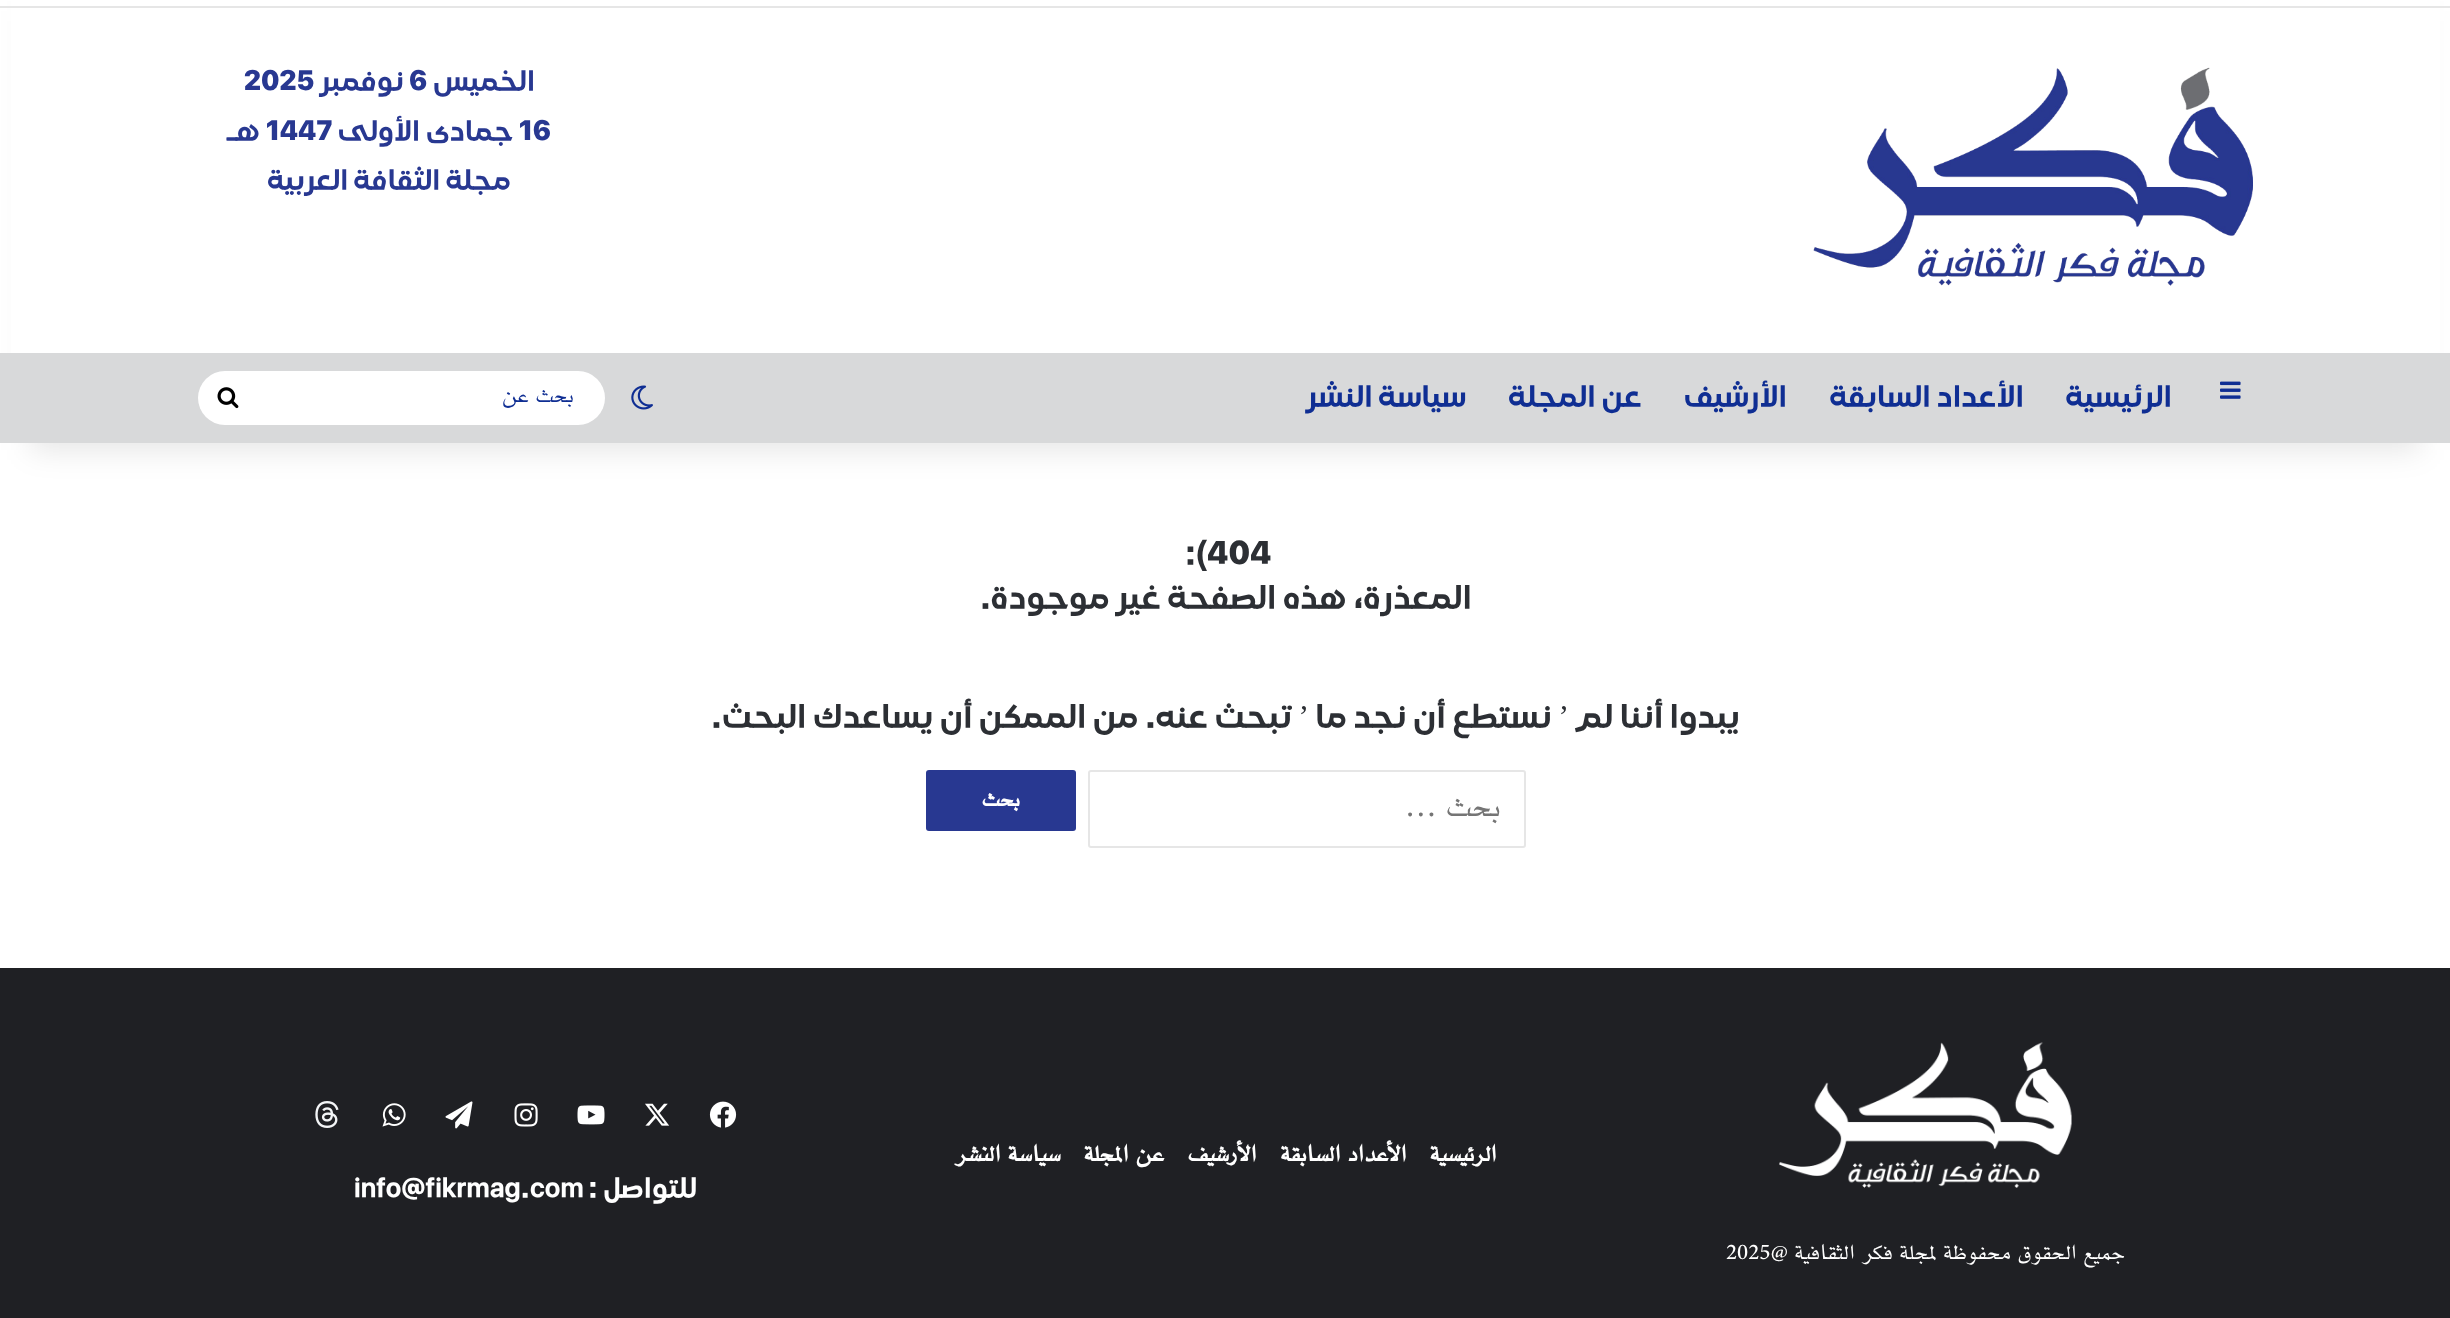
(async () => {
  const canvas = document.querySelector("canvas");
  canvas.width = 2450;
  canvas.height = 1318;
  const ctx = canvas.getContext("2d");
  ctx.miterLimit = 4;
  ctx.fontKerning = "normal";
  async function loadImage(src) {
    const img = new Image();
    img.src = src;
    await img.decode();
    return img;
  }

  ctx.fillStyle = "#ffffff";
  ctx.fillRect(0, 0, 2450, 1318);
  ctx.fillStyle = "rgba(0, 0, 0, 0.1)";
  ctx.filter = "blur(15px)";
  ctx.beginPath();
  ctx.rect(30, 11, 2391, 439);
  ctx.fill();
  ctx.filter = "none";
  ctx.fillStyle = "#ffffff";
  ctx.fillRect(11, 0, 2429, 353);
  ctx.fillStyle = "#e6e6e6";
  ctx.fillRect(0, 6, 2450, 2);
  ctx.drawImage(await loadImage("img/1.png"), 1813, 67, 440, 219);
  ctx.fillStyle = "#d8d9da";
  ctx.fillRect(0, 353, 2450, 90);
  ctx.drawImage(await loadImage("img/2.png"), 2220, 381, 21, 18);
  ctx.drawImage(await loadImage("img/3.png"), 631, 385, 22, 25);
  ctx.fillStyle = "#ffffff";
  ctx.beginPath();
  ctx.roundRect(198, 371, 407, 54, 27);
  ctx.fill();
  ctx.drawImage(await loadImage("img/4.png"), 217, 387, 22, 22);
  ctx.beginPath();
  ctx.roundRect(1089, 771, 436, 76, 2);
  ctx.strokeStyle = "#e6e6e6";
  ctx.lineWidth = 2;
  ctx.stroke();
  ctx.fillStyle = "#283891";
  ctx.beginPath();
  ctx.roundRect(926, 770, 150, 61, 3);
  ctx.fill();
  ctx.fillStyle = "#1f2024";
  ctx.fillRect(0, 968, 2450, 350);
  ctx.drawImage(await loadImage("img/5.png"), 709, 1101, 28, 27);
  ctx.drawImage(await loadImage("img/6.png"), 645, 1103, 25, 23);
  ctx.drawImage(await loadImage("img/7.png"), 577, 1105, 28, 20);
  ctx.drawImage(await loadImage("img/8.png"), 514, 1103, 24, 24);
  ctx.drawImage(await loadImage("img/9.png"), 445, 1101, 28, 28);
  ctx.drawImage(await loadImage("img/10.png"), 382, 1103, 24, 24);
  ctx.drawImage(await loadImage("img/11.png"), 315, 1101, 24, 27);
  ctx.drawImage(await loadImage("img/12.png"), 1779, 1042, 293, 146);
  ctx.direction = "rtl";
  ctx.font = "800 27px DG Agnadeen";
  ctx.fillStyle = "#283891";
  ctx.fillText("الخميس", 535, 90);
  ctx.direction = "ltr";
  ctx.fillText("6", 409, 90);
  ctx.direction = "rtl";
  ctx.fillText("نوفمبر", 404, 90);
  ctx.direction = "ltr";
  ctx.fillText("2025", 244, 90);
  ctx.fillText("16", 519, 140);
  ctx.direction = "rtl";
  ctx.fillText("جمادى الأولى", 513, 140);
  ctx.direction = "ltr";
  ctx.fillText("1447", 266, 140);
  ctx.direction = "rtl";
  ctx.fillText("هـ", 260, 140);
  ctx.fillText("مجلة الثقافة العربية", 511, 189);
  ctx.font = "800 28.5px DG Agnadeen";
  ctx.fillStyle = "#0f2e93";
  for (const [text, x, y] of [
    ["الرئيسية", 2172, 406],
    ["الأعداد السابقة", 2024, 406],
    ["الأرشيف", 1787, 406],
    ["عن المجلة", 1642, 406],
    ["سياسة النشر", 1466, 406],
  ]) {
    ctx.fillText(text, x, y);
  }
  ctx.font = "31.5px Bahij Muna";
  ctx.fillText("بحث عن", 574, 402);
  ctx.direction = "ltr";
  ctx.font = "800 31.5px DG Agnadeen";
  ctx.fillStyle = "#2c2f34";
  ctx.fillText(":(404", 1185, 564);
  ctx.direction = "rtl";
  ctx.fillText("المعذرة، هذه الصفحة غير موجودة.", 1472, 608);
  ctx.fillText("يبدوا أننا لم", 1740, 727);
  ctx.font = "31.5px Liberation Serif";
  ctx.fillText("’", 1569, 727);
  ctx.font = "800 31.5px DG Agnadeen";
  ctx.fillText("نستطع أن نجد ما", 1552, 727);
  ctx.font = "31.5px Liberation Serif";
  ctx.fillText("’", 1309, 727);
  ctx.font = "800 31.5px DG Agnadeen";
  ctx.fillText("تبحث عنه. من الممكن أن يساعدك البحث.", 1292, 727);
  ctx.font = "45px Bahij Muna";
  ctx.fillStyle = "#757575";
  ctx.fillText("بحث …", 1501, 816);
  ctx.font = "bold 31.5px Bahij Muna";
  ctx.fillStyle = "#ffffff";
  ctx.fillText("بحث", 1020, 806);
  ctx.font = "bold 33px Bahij Muna";
  for (const [text, x, y] of [
    ["الرئيسية", 1497, 1161],
    ["الأعداد السابقة", 1407, 1161],
    ["الأرشيف", 1257, 1161],
    ["عن المجلة", 1164, 1161],
    ["سياسة النشر", 1061, 1161],
  ]) {
    ctx.fillText(text, x, y);
  }
  ctx.font = "800 27px DG Agnadeen";
  ctx.fillText("للتواصل :", 697, 1197);
  ctx.direction = "ltr";
  ctx.fillText("info@fikrmag.com", 354, 1197);
  ctx.direction = "rtl";
  ctx.font = "31.5px Bahij Muna";
  ctx.fillText("جميع الحقوق محفوظة لمجلة فكر الثقافية @", 2125, 1259);
  ctx.direction = "ltr";
  ctx.fillText("2025", 1726, 1259);
})();
